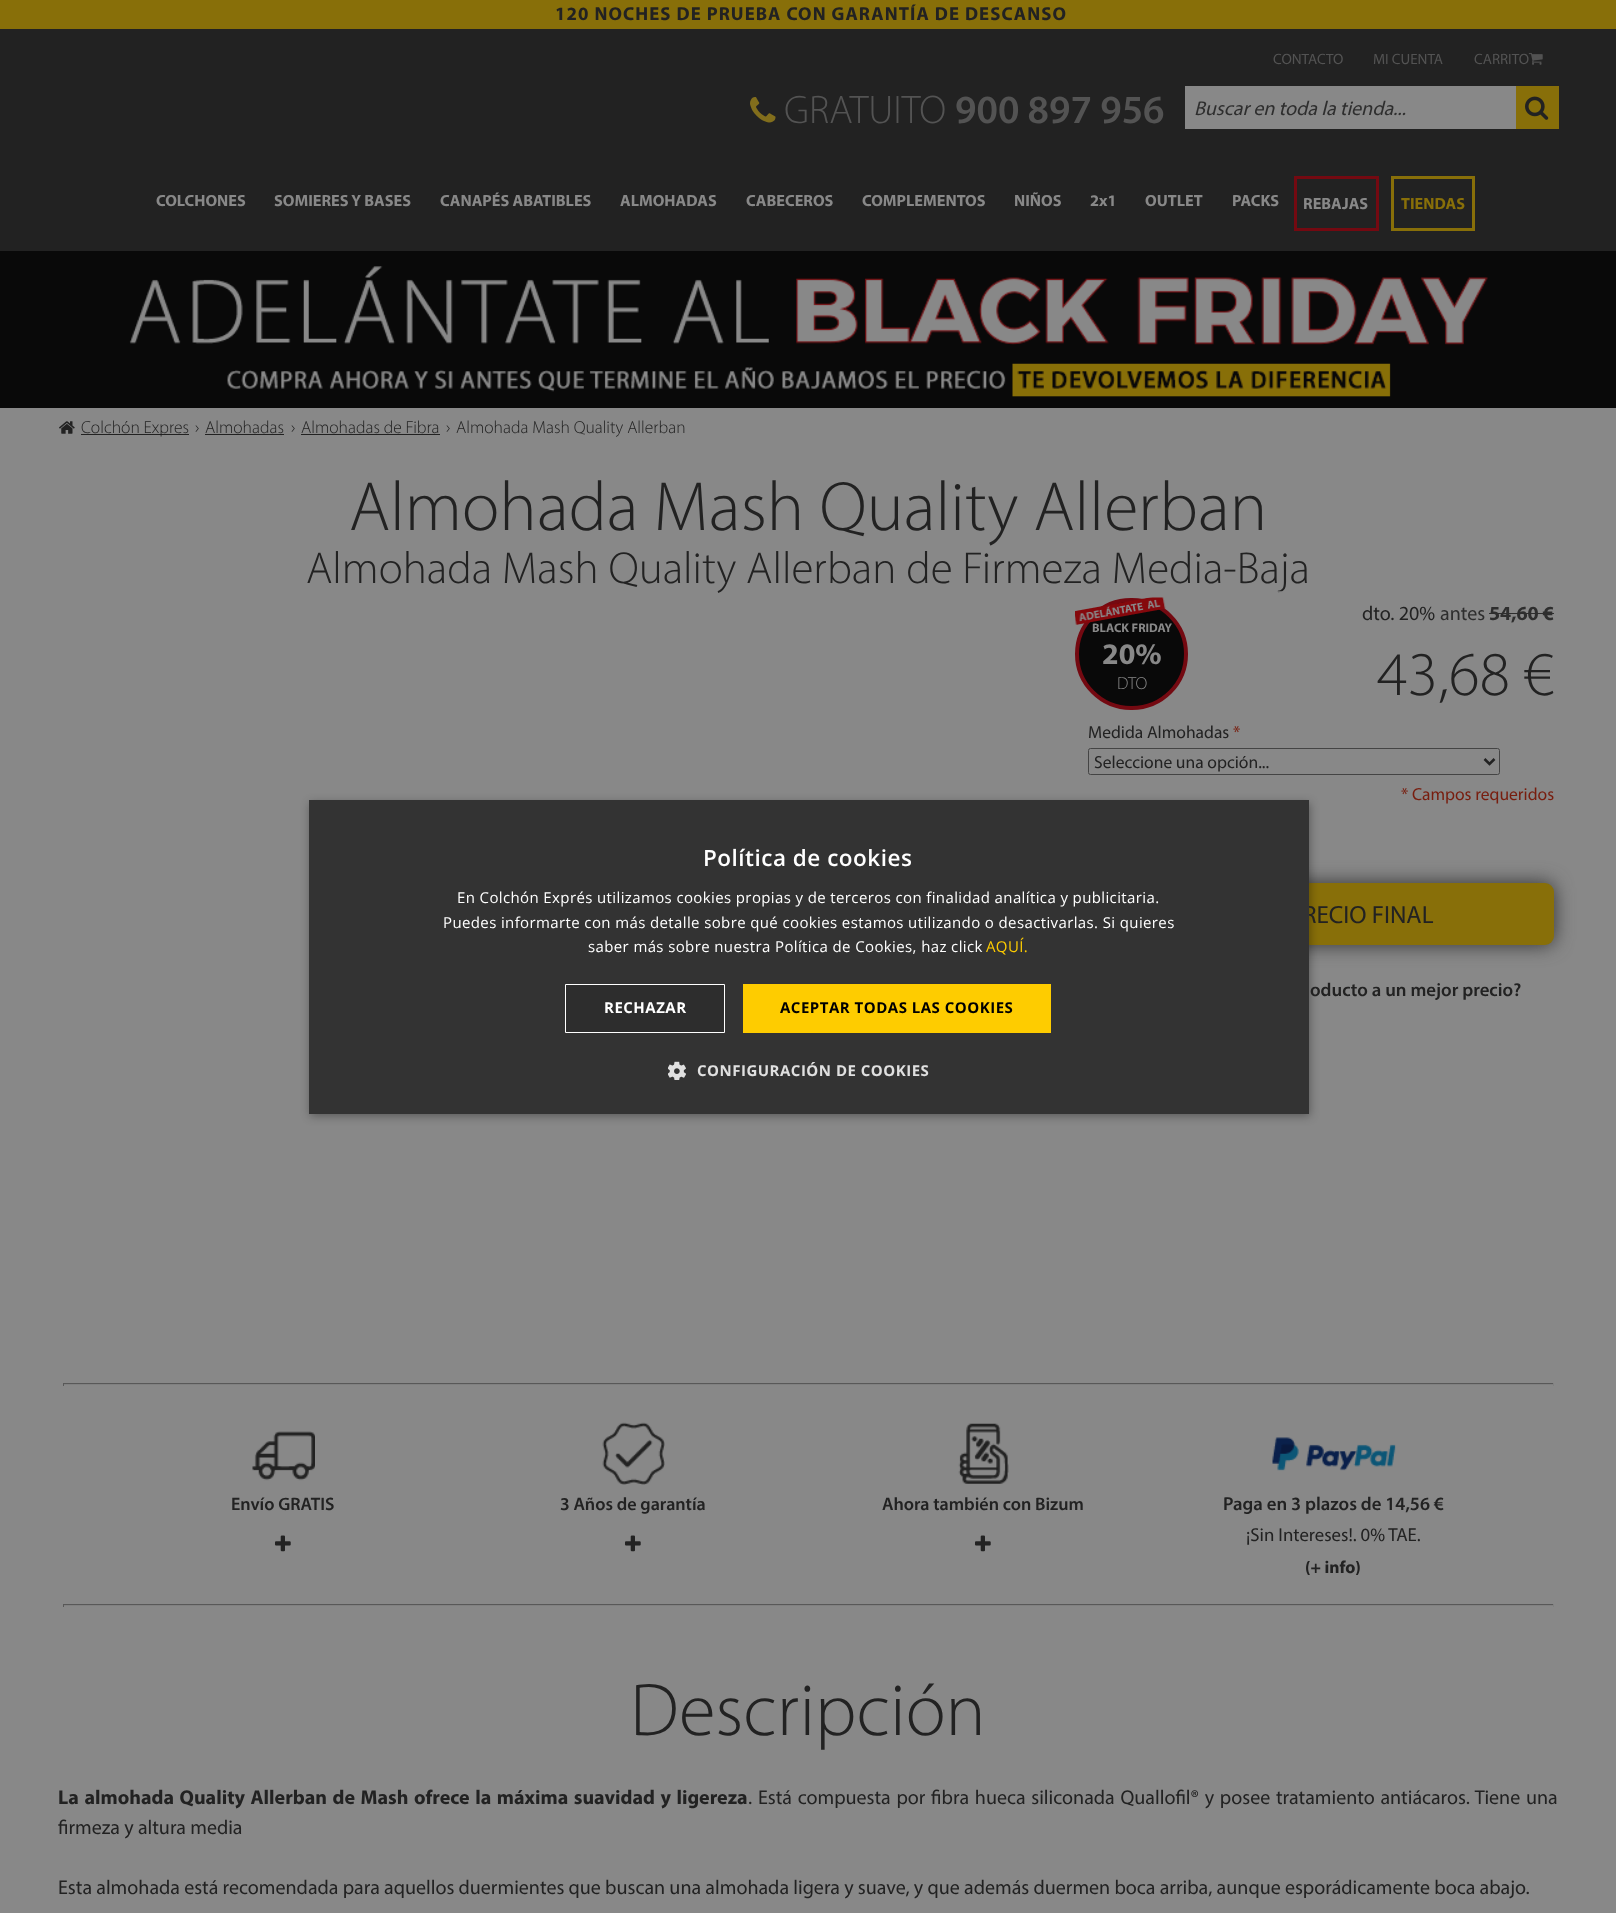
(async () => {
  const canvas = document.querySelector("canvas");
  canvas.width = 1616;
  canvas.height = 1913;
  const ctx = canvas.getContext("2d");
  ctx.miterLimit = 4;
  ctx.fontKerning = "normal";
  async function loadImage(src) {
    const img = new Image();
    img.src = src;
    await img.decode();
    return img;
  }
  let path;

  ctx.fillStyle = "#888888";
  ctx.fillRect(0, 0, 1616, 1913);
  ctx.fillStyle = "#886f09";
  ctx.fillRect(0, 0, 1616, 29);
  ctx.fillStyle = "#222222";
  ctx.fillRect(0, 29, 1616, 222);
  ctx.drawImage(await loadImage("img/2.png"), 750, 97, 26, 26);
  ctx.fillStyle = "#888888";
  ctx.fillRect(1185, 86, 331, 43);
  ctx.fillStyle = "#886f09";
  ctx.fillRect(1516, 86, 43, 43);
  ctx.drawImage(await loadImage("img/3.png"), 1525, 96, 24, 24);
  ctx.strokeStyle = "#740911";
  ctx.lineWidth = 3;
  ctx.strokeRect(1295.5, 177.5, 82, 52);
  ctx.strokeStyle = "#886f09";
  ctx.strokeRect(1392.5, 177.5, 81, 52);
  ctx.fillStyle = "#090909";
  ctx.fillRect(0, 251, 1616, 157);
  ctx.drawImage(await loadImage("img/4.png"), 129, 266, 1359, 131);
  ctx.drawImage(await loadImage("img/5.png"), 59, 421, 16, 13);
  for (const [x, y, w, h, color] of [
    [81, 434, 108, 1, "#222222"],
    [205, 434, 79, 1, "#222222"],
    [301, 434, 139, 1, "#222222"],
  ]) {
    ctx.fillStyle = color;
    ctx.fillRect(x, y, w, h);
  }
  ctx.fillStyle = "#090909";
  ctx.beginPath();
  ctx.roundRect(1077, 600, 109, 108, 54);
  ctx.fill();
  ctx.strokeStyle = "#740911";
  ctx.lineWidth = 4;
  ctx.stroke();
  ctx.fillStyle = "#2e2e2e";
  ctx.fillRect(1489, 613, 65, 1);
  ctx.beginPath();
  ctx.roundRect(1088.5, 748.5, 411, 26, 2);
  ctx.strokeStyle = "#444444";
  ctx.lineWidth = 1;
  ctx.stroke();
  path = new Path2D("M1484.5 759L1489.5 764L1494.5 759");
  ctx.strokeStyle = "#222222";
  ctx.lineWidth = 2.5;
  ctx.stroke(path);
  ctx.fillStyle = "#333333";
  ctx.filter = "blur(9.5px)";
  ctx.beginPath();
  ctx.roundRect(1088, 883, 466, 62, 9);
  ctx.fill();
  ctx.filter = "none";
  ctx.fillStyle = "#886f09";
  ctx.beginPath();
  ctx.roundRect(1088, 883, 466, 62, 9);
  ctx.fill();
  for (const [x, y, w, h, color] of [
    [63, 1383, 1491, 1, "#585858"],
    [1553, 1383, 1, 3, "#808080"],
    [63, 1384, 1491, 1, "#808080"],
    [63, 1383, 1, 3, "#585858"],
  ]) {
    ctx.fillStyle = color;
    ctx.fillRect(x, y, w, h);
  }
  ctx.drawImage(await loadImage("img/7.png"), 252, 1431, 63, 50);
  ctx.drawImage(await loadImage("img/8.png"), 275, 1535, 16, 17);
  ctx.drawImage(await loadImage("img/9.png"), 602, 1422, 63, 63);
  ctx.drawImage(await loadImage("img/8.png"), 625, 1535, 16, 17);
  ctx.drawImage(await loadImage("img/10.png"), 958, 1423, 51, 61);
  ctx.drawImage(await loadImage("img/8.png"), 975, 1535, 16, 17);
  ctx.drawImage(await loadImage("img/11.png"), 1272, 1437, 124, 34);
  for (const [x, y, w, h, color] of [
    [63, 1604, 1491, 1, "#585858"],
    [1553, 1604, 1, 3, "#808080"],
    [63, 1605, 1491, 1, "#808080"],
    [63, 1604, 1, 3, "#585858"],
  ]) {
    ctx.fillStyle = color;
    ctx.fillRect(x, y, w, h);
  }
  ctx.fillStyle = "rgba(0, 0, 0, 0.35)";
  ctx.filter = "blur(5px)";
  ctx.beginPath();
  ctx.rect(310, 803, 1000, 313);
  ctx.fill();
  ctx.filter = "none";
  ctx.letterSpacing = "1.1px";
  ctx.font = "bold 18.75px Myriad";
  ctx.fillStyle = "#222222";
  ctx.fillText("120 NOCHES DE PRUEBA CON GARANTÍA DE DESCANSO", 555, 20);
  ctx.letterSpacing = "0px";
  ctx.font = "15px Myriad";
  ctx.fillStyle = "#535353";
  for (const [text, x, y] of [
    ["CONTACTO", 1273, 64],
    ["MI CUENTA", 1373, 64],
    ["CARRITO", 1474, 64],
  ]) {
    ctx.fillText(text, x, y);
  }
  ctx.drawImage(await loadImage("img/1.png"), 1528, 53, 15, 12);
  ctx.font = "300 40px Myriad";
  ctx.fillText("GRATUITO", 784, 123);
  ctx.font = "600 40px Myriad";
  ctx.fillText("900 897 956", 955, 123);
  ctx.font = "italic 20px Myriad";
  ctx.fillStyle = "#2e2e2e";
  ctx.fillText("Buscar en toda la tienda...", 1194, 115);
  ctx.font = "bold 16.25px Myriad";
  ctx.fillStyle = "#888888";
  for (const [text, x, y] of [
    ["COLCHONES", 156, 206],
    ["SOMIERES Y BASES", 274, 206],
    ["CANAPÉS ABATIBLES", 440, 206],
    ["ALMOHADAS", 620, 206],
    ["CABECEROS", 746, 206],
    ["COMPLEMENTOS", 862, 206],
    ["NIÑOS", 1014, 206],
    ["2x1", 1090, 206],
    ["OUTLET", 1145, 206],
    ["PACKS", 1232, 206],
    ["REBAJAS", 1303, 209],
  ]) {
    ctx.fillText(text, x, y);
  }
  ctx.fillStyle = "#886f09";
  ctx.fillText("TIENDAS", 1401, 209);
  ctx.font = "300 17.5px Myriad";
  ctx.fillStyle = "#222222";
  for (const [text, x, y] of [
    ["Colchón Expres", 81, 433],
    ["›", 195, 433],
    ["Almohadas", 205, 433],
    ["›", 291, 433],
    ["Almohadas de Fibra", 301, 433],
    ["›", 446, 433],
    ["Almohada Mash Quality Allerban", 456, 433],
  ]) {
    ctx.fillText(text, x, y);
  }
  ctx.font = "300 70px Myriad";
  ctx.fillText("Almohada Mash Quality Allerban", 349, 530);
  ctx.font = "300 45px Myriad";
  ctx.fillText("Almohada Mash Quality Allerban de Firmeza Media-Baja", 306, 583);
  ctx.fillStyle = "rgba(136, 136, 136, 0.7)";
  ctx.fillRect(1278, 591, 5, 2);
  ctx.font = "bold 12.5px Myriad";
  ctx.fillStyle = "#888888";
  ctx.fillText("BLACK FRIDAY", 1092, 632);
  ctx.drawImage(await loadImage("img/6.png"), 1075, 597, 91, 28);
  ctx.font = "bold 30px Myriad";
  ctx.fillText("20%", 1102, 664);
  ctx.font = "300 17.5px Myriad";
  ctx.fillText("DTO", 1117, 689);
  ctx.font = "20px Myriad";
  ctx.fillStyle = "#222222";
  ctx.fillText("dto. 20%", 1362, 620);
  ctx.fillStyle = "#2e2e2e";
  ctx.fillText("antes", 1440, 620);
  ctx.font = "bold 20px Myriad";
  ctx.fillText("54,60 €", 1489, 620);
  ctx.font = "300 62.5px Myriad";
  ctx.fillStyle = "#222222";
  ctx.fillText("43,68 €", 1377, 695);
  ctx.font = "17.5px Myriad";
  ctx.fillText("Medida Almohadas", 1088, 738);
  ctx.fillStyle = "#781d0e";
  ctx.fillText("*", 1233, 738);
  ctx.fillStyle = "#222222";
  ctx.fillText("Seleccione una opción...", 1094, 768);
  ctx.fillStyle = "#781d0e";
  ctx.fillText("* Campos requeridos", 1401, 800);
  ctx.font = "25px Myriad";
  ctx.fillStyle = "#222222";
  ctx.fillText("RECIO FINAL", 1303, 923);
  ctx.font = "600 18.75px Myriad";
  ctx.fillText("oducto a un mejor precio?", 1310, 996);
  ctx.font = "600 18.1px Myriad";
  for (const [text, x, y] of [
    ["Envío GRATIS", 231, 1510],
    ["3 Años de garantía", 560, 1510],
    ["Ahora también con Bizum", 882, 1510],
  ]) {
    ctx.fillText(text, x, y);
  }
  ctx.font = "600 18.75px Myriad";
  ctx.fillText("Paga en 3 plazos de 14,56 €", 1223, 1510);
  ctx.font = "18.75px Myriad";
  ctx.fillText("¡Sin Intereses!. 0% TAE.", 1246, 1541);
  ctx.font = "bold 17.5px Myriad";
  ctx.fillText("(+ info)", 1305, 1573);
  ctx.font = "300 75px Myriad";
  ctx.fillText("Descripción", 630, 1735);
  ctx.wordSpacing = "1.5px";
  ctx.font = "bold 20px Myriad";
  ctx.fillText("La almohada Quality Allerban de Mash ofrece la máxima suavidad y ligereza", 58, 1804);
  ctx.font = "20px Myriad";
  ctx.fillText(". Está compuesta por fibra hueca siliconada Quallofil® y posee tratamiento antiácaros. Tiene una", 748, 1804);
  ctx.wordSpacing = "0px";
  ctx.fillText("firmeza y altura media", 58, 1834);
  ctx.fillText("Esta almohada está recomendada para aquellos duermientes que buscan una almohada ligera y suave, y que además duermen boca arriba, aunque esporádicamente boca abajo.", 58, 1894);
  ctx.fillStyle = "#333333";
  ctx.fillRect(309, 800, 1000, 314);
  ctx.letterSpacing = "0.5px";
  ctx.font = "600 22.5px Open Sans";
  ctx.fillStyle = "#ffffff";
  ctx.fillText("Política de cookies", 703, 866);
  ctx.letterSpacing = "0.38px";
  ctx.font = "15px Open Sans";
  for (const [text, x, y] of [
    ["En Colchón Exprés utilizamos cookies propias y de terceros con finalidad analítica y publicitaria.", 457, 903],
    ["Puedes informarte con más detalle sobre qué cookies estamos utilizando o desactivarlas. Si quieres", 443, 928],
    ["saber más sobre nuestra Política de Cookies, haz click", 588, 952],
  ]) {
    ctx.fillText(text, x, y);
  }
  ctx.fillStyle = "#fecc00";
  ctx.fillText("AQUÍ.", 986, 952);
  ctx.fillStyle = "#2d2d2d";
  ctx.beginPath();
  ctx.rect(565.5, 984.5, 159, 48);
  ctx.fill();
  ctx.strokeStyle = "#ffffff";
  ctx.lineWidth = 1;
  ctx.stroke();
  ctx.letterSpacing = "0.5px";
  ctx.font = "bold 15px Open Sans";
  ctx.fillStyle = "#ffffff";
  ctx.fillText("RECHAZAR", 604, 1013);
  ctx.fillStyle = "#fecc00";
  ctx.fillRect(743, 984, 308, 49);
  ctx.fillStyle = "#000000";
  ctx.fillText("ACEPTAR TODAS LAS COOKIES", 780, 1013);
  ctx.drawImage(await loadImage("img/12.png"), 668, 1061, 18, 19);
  ctx.fillStyle = "#e0e0e0";
  ctx.fillText("CONFIGURACIÓN DE COOKIES", 697, 1076);
})();
